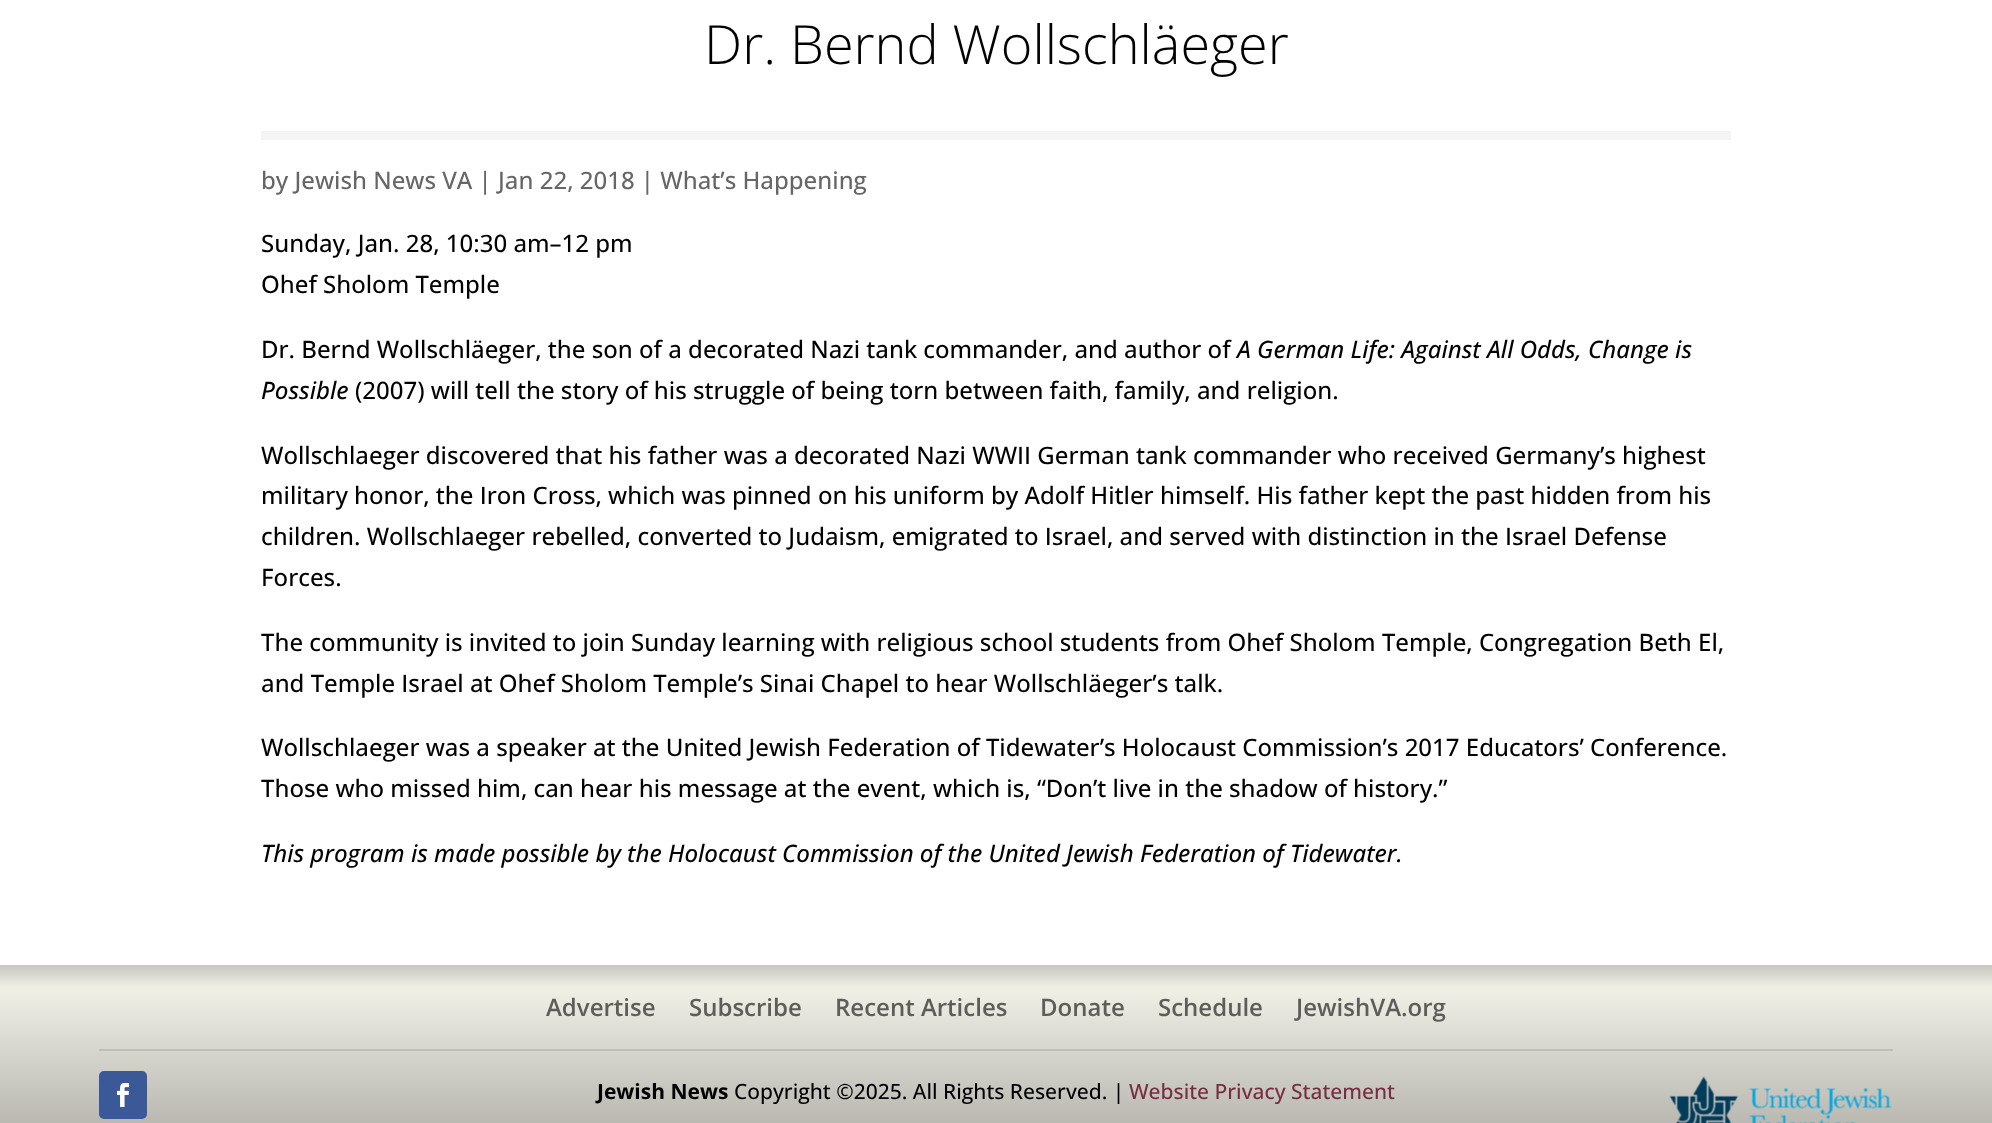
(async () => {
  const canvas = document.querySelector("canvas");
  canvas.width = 1992;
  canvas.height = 1123;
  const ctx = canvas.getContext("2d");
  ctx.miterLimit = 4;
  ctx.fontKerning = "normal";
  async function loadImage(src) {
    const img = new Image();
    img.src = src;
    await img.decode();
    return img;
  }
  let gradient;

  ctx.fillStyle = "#ffffff";
  ctx.fillRect(0, 0, 1992, 1123);
  ctx.fillStyle = "#f4f4f4";
  ctx.fillRect(261, 131, 1470, 9);
  gradient = ctx.createLinearGradient(996, 964, 996, 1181);
  gradient.addColorStop(0, "#c5c5bd");
  gradient.addColorStop(0.11, "#f0f0e7");
  gradient.addColorStop(0.99, "#a3a19b");
  ctx.fillStyle = gradient;
  ctx.fillRect(0, 965, 1992, 158);
  ctx.fillStyle = "#bfbfb7";
  ctx.fillRect(99, 1049, 1794, 2);
  ctx.fillStyle = "#3b5998";
  ctx.beginPath();
  ctx.roundRect(99, 1071, 48, 48, 5);
  ctx.fill();
  ctx.drawImage(await loadImage("img/1.png"), 117, 1083, 13, 24);
  ctx.drawImage(await loadImage("img/2.png"), 1669, 1076, 223, 47);
  ctx.font = "300 54px Open Sans";
  ctx.fillStyle = "#000000";
  ctx.fillText("Dr. Bernd Wollschläeger", 704, 64);
  ctx.font = "500 24px Open Sans";
  ctx.fillStyle = "#666666";
  ctx.fillText("by Jewish News VA | Jan 22, 2018 | What’s Happening", 261, 189);
  ctx.fillStyle = "#000000";
  for (const [text, x, y] of [
    ["Sunday, Jan. 28, 10:30 am–12 pm", 261, 252],
    ["Ohef Sholom Temple", 261, 293],
    ["Dr. Bernd Wollschläeger, the son of a decorated Nazi tank commander, and author of", 261, 358],
  ]) {
    ctx.fillText(text, x, y);
  }
  ctx.font = "italic 500 24px Open Sans";
  ctx.fillText("A German Life: Against All Odds, Change is", 1237, 358);
  ctx.fillText("Possible", 261, 399);
  ctx.font = "500 24px Open Sans";
  for (const [text, x, y] of [
    ["(2007) will tell the story of his struggle of being torn between faith, family, and religion.", 355, 399],
    ["Wollschlaeger discovered that his father was a decorated Nazi WWII German tank commander who received Germany’s highest", 261, 464],
    ["military honor, the Iron Cross, which was pinned on his uniform by Adolf Hitler himself. His father kept the past hidden from his", 261, 504],
    ["children. Wollschlaeger rebelled, converted to Judaism, emigrated to Israel, and served with distinction in the Israel Defense", 261, 545],
    ["Forces.", 261, 586],
    ["The community is invited to join Sunday learning with religious school students from Ohef Sholom Temple, Congregation Beth El,", 261, 651],
    ["and Temple Israel at Ohef Sholom Temple’s Sinai Chapel to hear Wollschläeger’s talk.", 261, 692],
    ["Wollschlaeger was a speaker at the United Jewish Federation of Tidewater’s Holocaust Commission’s 2017 Educators’ Conference.", 261, 756],
    ["Those who missed him, can hear his message at the event, which is, “Don’t live in the shadow of history.”", 261, 797],
  ]) {
    ctx.fillText(text, x, y);
  }
  ctx.font = "italic 500 24px Open Sans";
  ctx.fillText("This program is made possible by the Holocaust Commission of the United Jewish Federation of Tidewater.", 261, 862);
  ctx.font = "600 24px Open Sans";
  ctx.fillStyle = "#5d5d59";
  for (const [text, x, y] of [
    ["Advertise", 546, 1016],
    ["Subscribe", 689, 1016],
    ["Recent Articles", 835, 1016],
    ["Donate", 1040, 1016],
    ["Schedule", 1158, 1016],
    ["JewishVA.org", 1296, 1016],
  ]) {
    ctx.fillText(text, x, y);
  }
  ctx.font = "bold 21px Open Sans";
  ctx.fillStyle = "#000000";
  ctx.fillText("Jewish News", 597, 1099);
  ctx.font = "500 21px Open Sans";
  ctx.fillText("Copyright ©2025. All Rights Reserved. |", 734, 1099);
  ctx.fillStyle = "#782c42";
  ctx.fillText("Website Privacy Statement", 1129, 1099);
})();
